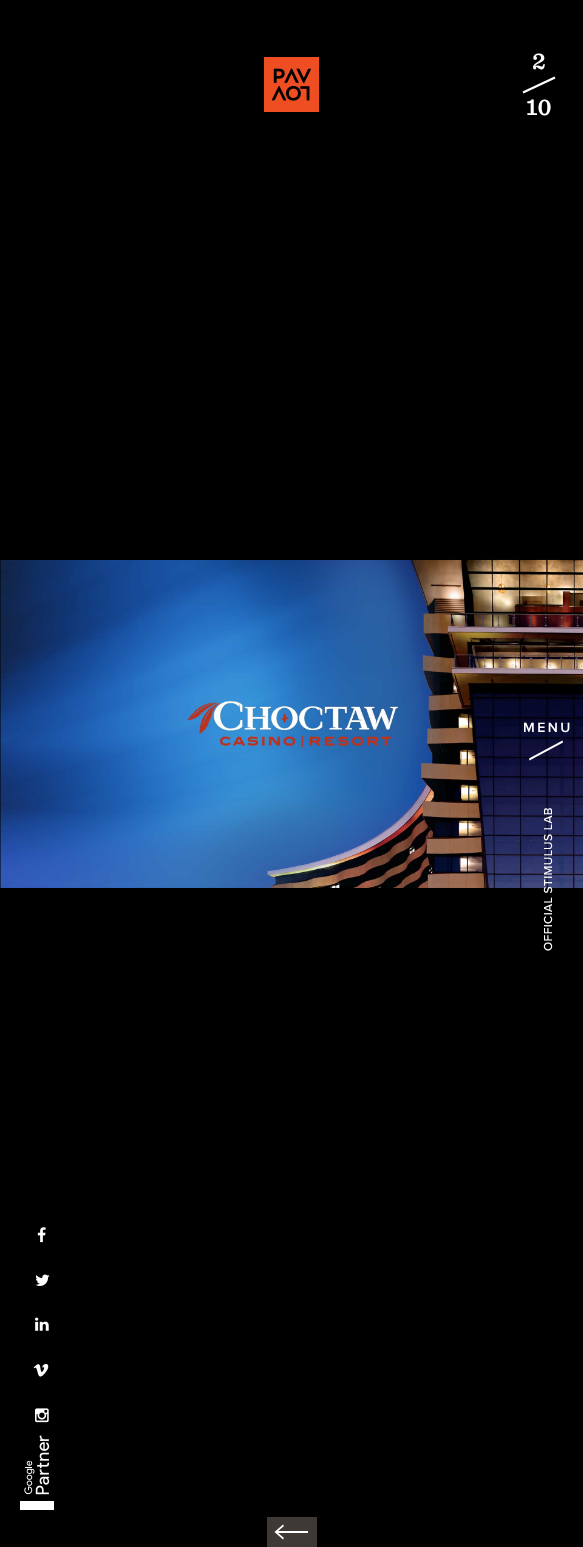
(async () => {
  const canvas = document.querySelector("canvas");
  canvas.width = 583;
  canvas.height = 1547;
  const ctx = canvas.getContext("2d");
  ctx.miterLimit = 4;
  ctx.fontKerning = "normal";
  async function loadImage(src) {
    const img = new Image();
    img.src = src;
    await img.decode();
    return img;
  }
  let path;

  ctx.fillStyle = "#000000";
  ctx.fillRect(0, 0, 583, 1547);
  ctx.fillStyle = "#ffffff";
  path = new Path2D("M522.5 91.5L554.5 76.5L555.5 78.5L523.5 93.5Z");
  ctx.fill(path);
  ctx.drawImage(await loadImage("img/1.png"), 0, 559, 583, 329);
  ctx.fillStyle = "#ef4e23";
  ctx.fillRect(264, 57, 55, 55);
  ctx.drawImage(await loadImage("img/2.png"), 271, 68, 40, 33);
  ctx.fillStyle = "#ffffff";
  path = new Path2D("M529 758.5L562.5 740.5L563 742.5L529.5 760.5Z");
  ctx.fill(path);
  ctx.drawImage(await loadImage("img/3.png"), 37, 1227, 9, 16);
  ctx.drawImage(await loadImage("img/4.png"), 35, 1274, 15, 12);
  ctx.drawImage(await loadImage("img/5.png"), 35, 1317, 14, 14);
  ctx.drawImage(await loadImage("img/6.png"), 33, 1364, 16, 13);
  ctx.drawImage(await loadImage("img/7.png"), 35, 1408, 14, 15);
  ctx.drawImage(await loadImage("img/8.png"), 20, 1435, 34, 75);
  ctx.fillStyle = "#3e3935";
  ctx.fillRect(267, 1517, 50, 30);
  ctx.fillStyle = "#ffffff";
  ctx.fillRect(277, 1531, 31, 2);
  path = new Path2D("M274.5 1532L283 1524.5L284 1526L277 1532L284 1538L283 1539.5Z");
  ctx.fill(path);
  ctx.font = "600 24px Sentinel";
  ctx.fillText("2", 532, 69);
  ctx.fillText("10", 526, 115);
  ctx.letterSpacing = "2.5px";
  ctx.font = "600 14px Proxima Nova";
  ctx.fillText("MENU", 523, 732);
  ctx.letterSpacing = "0.4px";
  ctx.font = "500 12px Proxima Nova";
  ctx.save();
  ctx.translate(552, 951);
  ctx.rotate(-90 * Math.PI / 180);
  ctx.fillText("OFFICIAL STIMULUS LAB", 0, 0);
  ctx.restore();
})();
